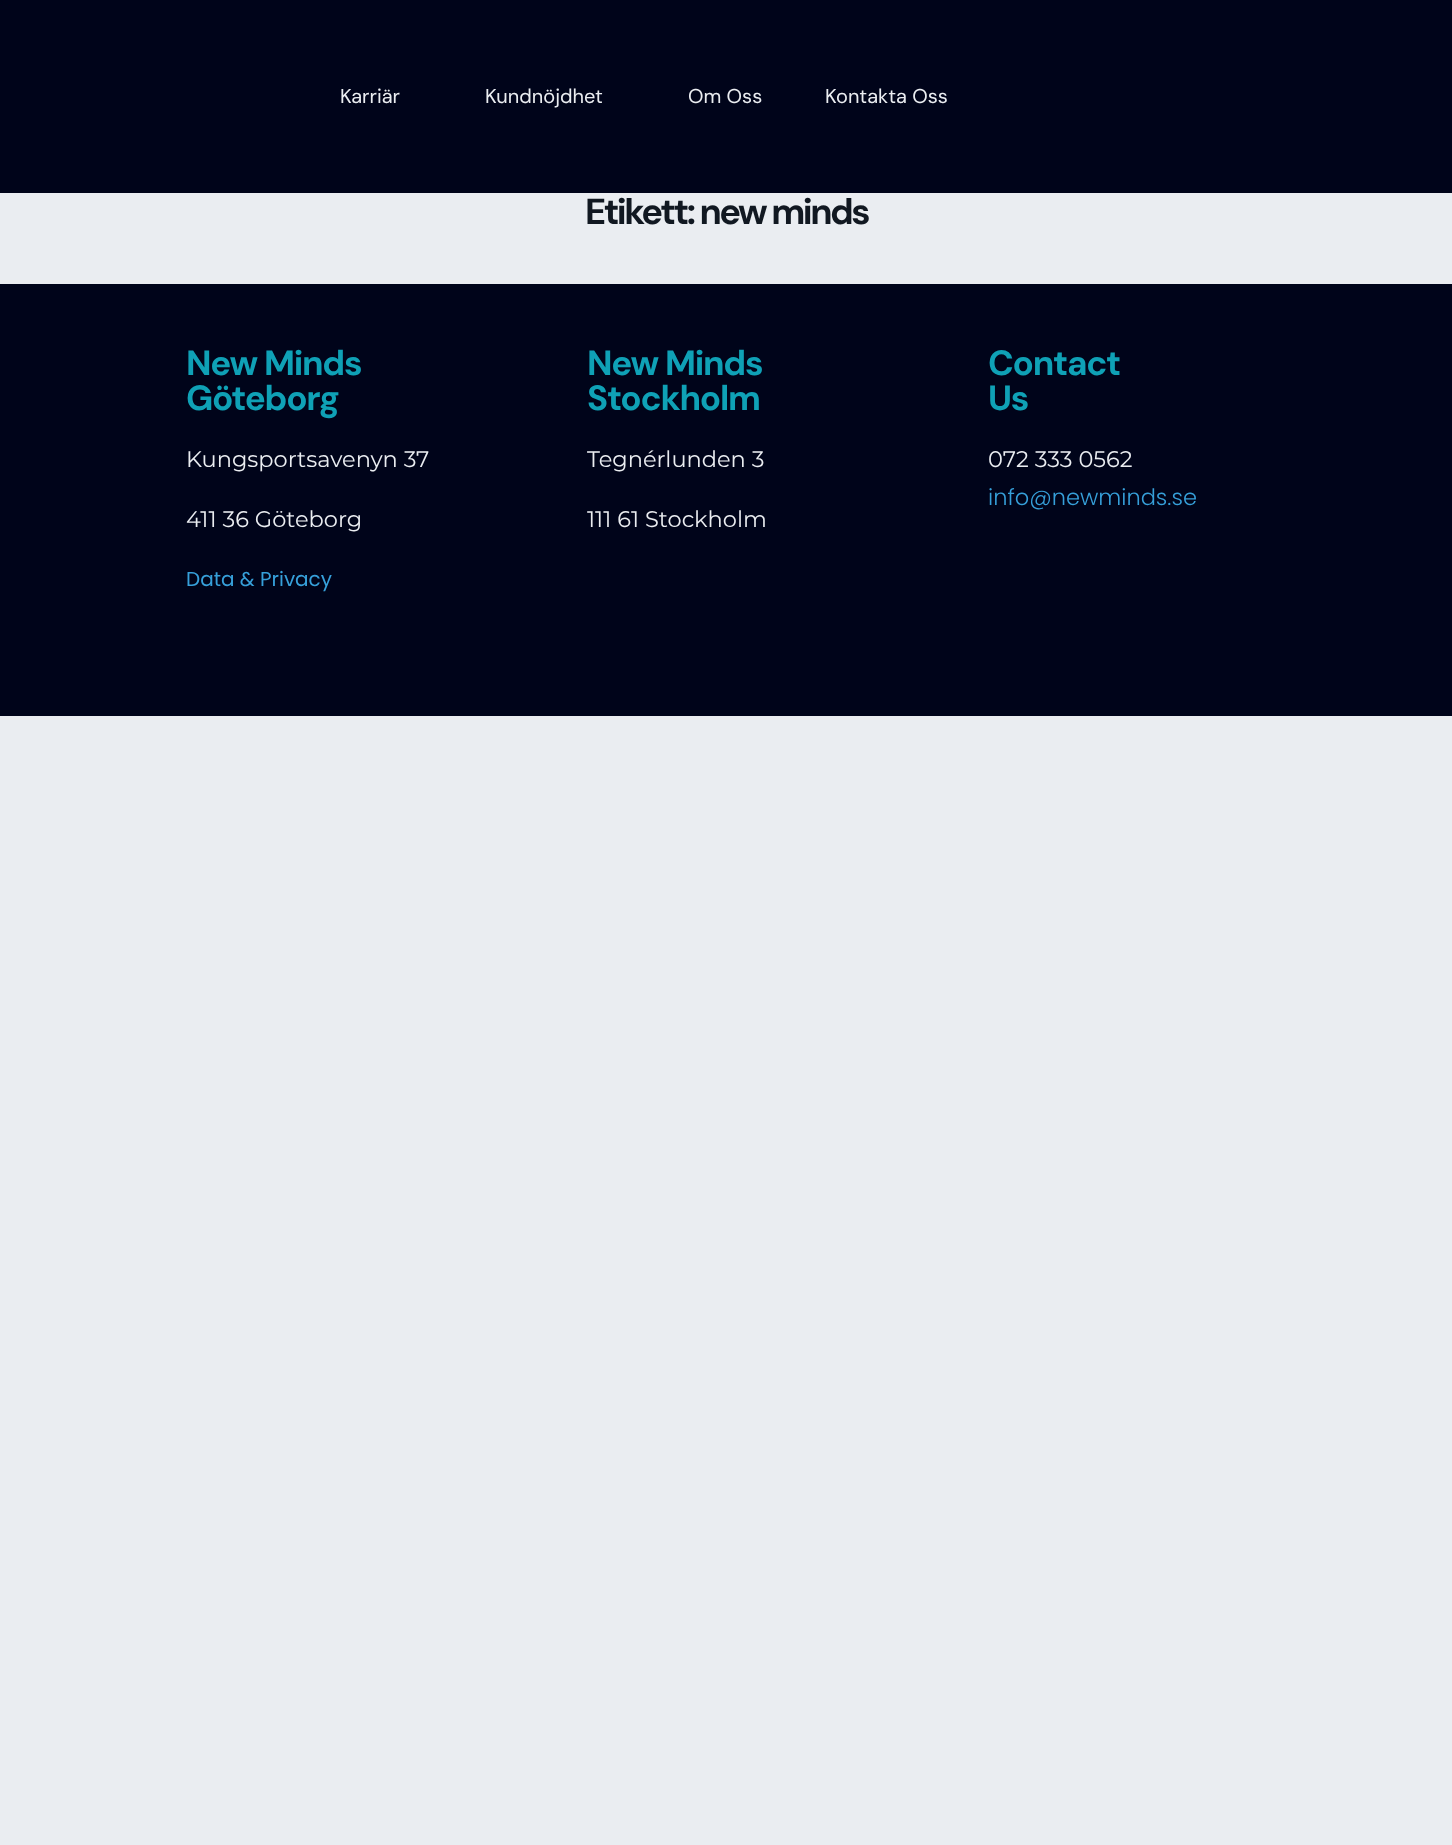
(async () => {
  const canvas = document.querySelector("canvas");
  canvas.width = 1452;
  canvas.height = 1845;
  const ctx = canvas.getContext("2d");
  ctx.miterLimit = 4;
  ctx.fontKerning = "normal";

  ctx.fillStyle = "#eaedf1";
  ctx.fillRect(0, 0, 1452, 1845);
  ctx.fillStyle = "#00041a";
  ctx.fillRect(0, 0, 1452, 193);
  ctx.fillRect(0, 284, 1452, 432);
  ctx.font = "20px DM Sans";
  ctx.fillStyle = "#eaedf1";
  for (const [text, x, y] of [
    ["Karriär", 340, 103],
    ["Kundnöjdhet", 485, 103],
    ["Om Oss", 688, 103],
    ["Kontakta Oss", 825, 103],
  ]) {
    ctx.fillText(text, x, y);
  }
  ctx.letterSpacing = "-2.5px";
  ctx.font = "bold 36.25px DM Sans";
  ctx.fillStyle = "#111821";
  ctx.fillText("Etikett: new minds", 585, 224);
  ctx.letterSpacing = "-1.25px";
  ctx.font = "bold 35px DM Sans";
  ctx.fillStyle = "#0fa1b6";
  ctx.fillText("New Minds", 186, 375);
  ctx.fillText("Göteborg", 186, 410);
  ctx.letterSpacing = "0px";
  ctx.font = "22.5px Montserrat";
  ctx.fillStyle = "#eaedf1";
  ctx.fillText("Kungsportsavenyn 37", 186, 467);
  ctx.fillText("411 36 Göteborg", 186, 527);
  ctx.font = "20px Poppins";
  ctx.fillStyle = "#36a0da";
  ctx.fillText("Data & Privacy", 186, 586);
  ctx.letterSpacing = "-1.25px";
  ctx.font = "bold 35px DM Sans";
  ctx.fillStyle = "#0fa1b6";
  ctx.fillText("New Minds", 587, 375);
  ctx.fillText("Stockholm", 587, 410);
  ctx.letterSpacing = "0px";
  ctx.font = "22.5px Montserrat";
  ctx.fillStyle = "#eaedf1";
  ctx.fillText("Tegnérlunden 3", 587, 467);
  ctx.fillText("111 61 Stockholm", 587, 527);
  ctx.letterSpacing = "-1.25px";
  ctx.font = "bold 35px DM Sans";
  ctx.fillStyle = "#0fa1b6";
  ctx.fillText("Contact", 988, 375);
  ctx.fillText("Us", 988, 410);
  ctx.letterSpacing = "0px";
  ctx.font = "22.5px Montserrat";
  ctx.fillStyle = "#eaedf1";
  ctx.fillText("072 333 0562", 988, 467);
  ctx.font = "300 22.5px Poppins";
  ctx.fillStyle = "#36a0da";
  ctx.fillText("info@newminds.se", 988, 505);
})();
